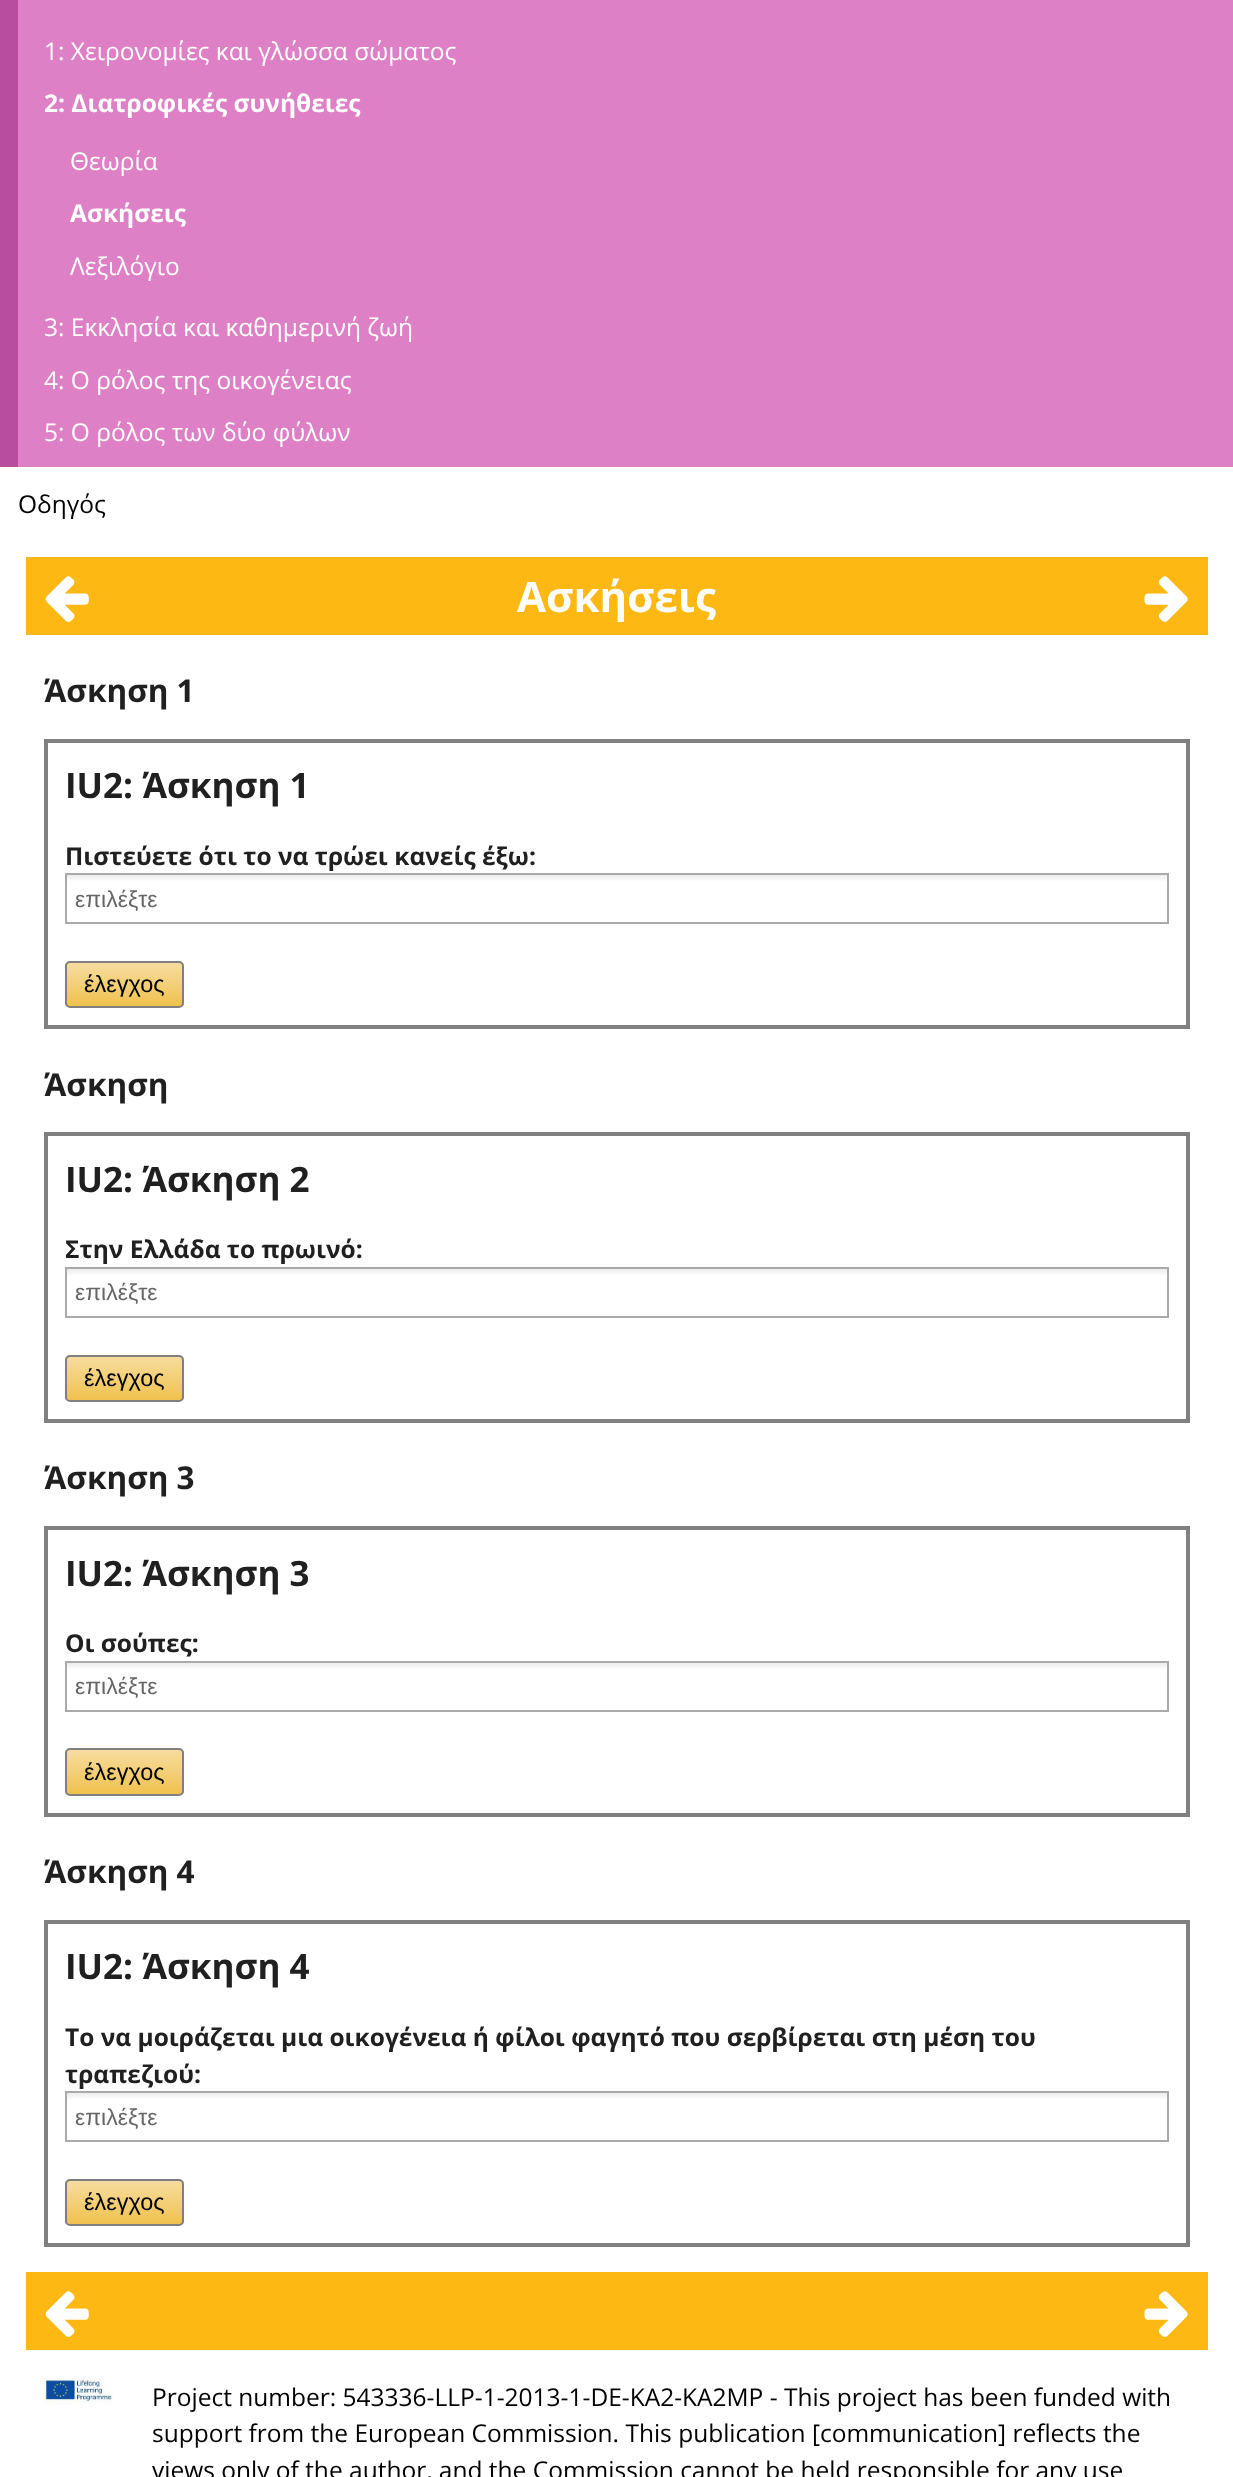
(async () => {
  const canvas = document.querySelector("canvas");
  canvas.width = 1233;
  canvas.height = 2477;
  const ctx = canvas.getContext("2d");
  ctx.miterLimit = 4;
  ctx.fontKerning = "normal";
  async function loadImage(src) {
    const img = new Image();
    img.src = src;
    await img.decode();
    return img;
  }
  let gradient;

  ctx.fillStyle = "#ffffff";
  ctx.fillRect(0, 0, 1233, 2477);
  for (const [x, y, w, h, color] of [
    [0, 0, 18, 467, "#b84d9d"],
    [18, 0, 1215, 467, "#de80c6"],
    [26, 557, 1182, 78, "#fdb813"],
  ]) {
    ctx.fillStyle = color;
    ctx.fillRect(x, y, w, h);
  }
  ctx.drawImage(await loadImage("img/1.png"), 45, 576, 44, 46);
  ctx.drawImage(await loadImage("img/2.png"), 1144, 576, 44, 46);
  ctx.strokeStyle = "#808080";
  ctx.lineWidth = 4;
  ctx.strokeRect(46, 741, 1142, 286);
  gradient = ctx.createLinearGradient(617, 875, 617, 922);
  gradient.addColorStop(0.01, "#eeeeee");
  gradient.addColorStop(0.15, "#ffffff");
  ctx.fillStyle = gradient;
  ctx.fillRect(67, 875, 1100, 6);
  ctx.strokeStyle = "#aaaaaa";
  ctx.lineWidth = 2;
  ctx.strokeRect(66, 874, 1102, 49);
  ctx.save();
  ctx.beginPath();
  ctx.roundRect(65, 961, 119, 47, 5);
  ctx.clip();
  gradient = ctx.createLinearGradient(124, 963, 124, 1006);
  gradient.addColorStop(0, "#f6dda0");
  gradient.addColorStop(1, "#f0c14d");
  ctx.fillStyle = gradient;
  ctx.fillRect(65, 963, 119, 43);
  ctx.restore();
  ctx.beginPath();
  ctx.roundRect(66, 962, 117, 45, 4);
  ctx.strokeStyle = "#808080";
  ctx.stroke();
  ctx.lineWidth = 4;
  ctx.strokeRect(46, 1134, 1142, 287);
  gradient = ctx.createLinearGradient(617, 1269, 617, 1316);
  gradient.addColorStop(0.01, "#eeeeee");
  gradient.addColorStop(0.15, "#ffffff");
  ctx.fillStyle = gradient;
  ctx.fillRect(67, 1269, 1100, 6);
  ctx.strokeStyle = "#aaaaaa";
  ctx.lineWidth = 2;
  ctx.strokeRect(66, 1268, 1102, 49);
  ctx.save();
  ctx.beginPath();
  ctx.roundRect(65, 1355, 119, 47, 5);
  ctx.clip();
  gradient = ctx.createLinearGradient(124, 1356, 124, 1400);
  gradient.addColorStop(0, "#f6dda0");
  gradient.addColorStop(1, "#f0c14d");
  ctx.fillStyle = gradient;
  ctx.fillRect(65, 1356, 119, 44);
  ctx.restore();
  ctx.beginPath();
  ctx.roundRect(66, 1356, 117, 45, 4);
  ctx.strokeStyle = "#808080";
  ctx.stroke();
  ctx.lineWidth = 4;
  ctx.strokeRect(46, 1528, 1142, 287);
  gradient = ctx.createLinearGradient(617, 1663, 617, 1710);
  gradient.addColorStop(0.01, "#eeeeee");
  gradient.addColorStop(0.15, "#ffffff");
  ctx.fillStyle = gradient;
  ctx.fillRect(67, 1663, 1100, 6);
  ctx.strokeStyle = "#aaaaaa";
  ctx.lineWidth = 2;
  ctx.strokeRect(66, 1662, 1102, 49);
  ctx.save();
  ctx.beginPath();
  ctx.roundRect(65, 1748, 119, 48, 5);
  ctx.clip();
  gradient = ctx.createLinearGradient(124, 1750, 124, 1794);
  gradient.addColorStop(0, "#f6dda0");
  gradient.addColorStop(1, "#f0c14d");
  ctx.fillStyle = gradient;
  ctx.fillRect(65, 1750, 119, 44);
  ctx.restore();
  ctx.beginPath();
  ctx.roundRect(66, 1749, 117, 46, 4);
  ctx.strokeStyle = "#808080";
  ctx.stroke();
  ctx.lineWidth = 4;
  ctx.strokeRect(46, 1922, 1142, 323);
  gradient = ctx.createLinearGradient(617, 2093, 617, 2140);
  gradient.addColorStop(0.01, "#eeeeee");
  gradient.addColorStop(0.15, "#ffffff");
  ctx.fillStyle = gradient;
  ctx.fillRect(67, 2093, 1100, 6);
  ctx.strokeStyle = "#aaaaaa";
  ctx.lineWidth = 2;
  ctx.strokeRect(66, 2092, 1102, 49);
  ctx.save();
  ctx.beginPath();
  ctx.roundRect(65, 2179, 119, 47, 5);
  ctx.clip();
  gradient = ctx.createLinearGradient(124, 2181, 124, 2224);
  gradient.addColorStop(0, "#f6dda0");
  gradient.addColorStop(1, "#f0c14d");
  ctx.fillStyle = gradient;
  ctx.fillRect(65, 2181, 119, 43);
  ctx.restore();
  ctx.beginPath();
  ctx.roundRect(66, 2180, 117, 45, 4);
  ctx.strokeStyle = "#808080";
  ctx.stroke();
  ctx.fillStyle = "#fdb813";
  ctx.fillRect(26, 2272, 1182, 78);
  ctx.drawImage(await loadImage("img/1.png"), 45, 2291, 44, 46);
  ctx.drawImage(await loadImage("img/2.png"), 1144, 2291, 44, 46);
  ctx.drawImage(await loadImage("img/3.png"), 43, 2378, 70, 27);
  ctx.font = "24.5px Open Sans";
  ctx.fillStyle = "#ffffff";
  ctx.fillText("1: Χειρονομίες και γλώσσα σώματος", 44, 60);
  ctx.font = "bold 24.5px Open Sans";
  ctx.fillText("2: Διατροφικές συνήθειες", 44, 112);
  ctx.font = "24.5px Open Sans";
  ctx.fillText("Θεωρία", 70, 170);
  ctx.font = "bold 24.5px Open Sans";
  ctx.fillText("Ασκήσεις", 70, 222);
  ctx.font = "24.5px Open Sans";
  for (const [text, x, y] of [
    ["Λεξιλόγιο", 70, 275],
    ["3: Εκκλησία και καθημερινή ζωή", 44, 336],
    ["4: Ο ρόλος της οικογένειας", 44, 389],
    ["5: Ο ρόλος των δύο φύλων", 44, 441],
  ]) {
    ctx.fillText(text, x, y);
  }
  ctx.fillStyle = "#000000";
  ctx.fillText("Οδηγός", 18, 513);
  ctx.font = "bold 42px Open Sans";
  ctx.fillStyle = "#ffffff";
  ctx.fillText("Ασκήσεις", 517, 612);
  ctx.font = "bold 31.5px Open Sans";
  ctx.fillStyle = "#202020";
  ctx.fillText("Άσκηση 1", 44, 702);
  ctx.font = "bold 35px Open Sans";
  ctx.fillText("IU2: Άσκηση 1", 65, 798);
  ctx.font = "bold 24.5px Open Sans";
  ctx.fillText("Πιστεύετε ότι το να τρώει κανείς έξω:", 65, 865);
  ctx.font = "23px Liberation Sans";
  ctx.fillStyle = "#666666";
  ctx.fillText("επιλέξτε", 75, 907);
  ctx.font = "23.5px Liberation Sans";
  ctx.fillStyle = "#000000";
  ctx.fillText("έλεγχος", 84, 992);
  ctx.font = "bold 31.5px Open Sans";
  ctx.fillStyle = "#202020";
  ctx.fillText("Άσκηση", 44, 1096);
  ctx.font = "bold 35px Open Sans";
  ctx.fillText("IU2: Άσκηση 2", 65, 1192);
  ctx.font = "bold 24.5px Open Sans";
  ctx.fillText("Στην Ελλάδα το πρωινό:", 65, 1258);
  ctx.font = "23px Liberation Sans";
  ctx.fillStyle = "#666666";
  ctx.fillText("επιλέξτε", 75, 1300);
  ctx.font = "23.5px Liberation Sans";
  ctx.fillStyle = "#000000";
  ctx.fillText("έλεγχος", 84, 1386);
  ctx.font = "bold 31.5px Open Sans";
  ctx.fillStyle = "#202020";
  ctx.fillText("Άσκηση 3", 44, 1489);
  ctx.font = "bold 35px Open Sans";
  ctx.fillText("IU2: Άσκηση 3", 65, 1586);
  ctx.font = "bold 24.5px Open Sans";
  ctx.fillText("Οι σούπες:", 65, 1652);
  ctx.font = "23px Liberation Sans";
  ctx.fillStyle = "#666666";
  ctx.fillText("επιλέξτε", 75, 1694);
  ctx.font = "23.5px Liberation Sans";
  ctx.fillStyle = "#000000";
  ctx.fillText("έλεγχος", 84, 1780);
  ctx.font = "bold 31.5px Open Sans";
  ctx.fillStyle = "#202020";
  ctx.fillText("Άσκηση 4", 44, 1883);
  ctx.font = "bold 35px Open Sans";
  ctx.fillText("IU2: Άσκηση 4", 65, 1979);
  ctx.font = "bold 24.5px Open Sans";
  ctx.fillText("Το να μοιράζεται μια οικογένεια ή φίλοι φαγητό που σερβίρεται στη μέση του", 65, 2046);
  ctx.fillText("τραπεζιού:", 65, 2083);
  ctx.font = "23px Liberation Sans";
  ctx.fillStyle = "#666666";
  ctx.fillText("επιλέξτε", 75, 2125);
  ctx.font = "23.5px Liberation Sans";
  ctx.fillStyle = "#000000";
  ctx.fillText("έλεγχος", 84, 2210);
  ctx.font = "24.5px Open Sans";
  for (const [text, x, y] of [
    ["Project number: 543336-LLP-1-2013-1-DE-KA2-KA2MP - This project has been funded with", 152, 2406],
    ["support from the European Commission. This publication [communication] reflects the", 152, 2442],
    ["views only of the author, and the Commission cannot be held responsible for any use", 152, 2479],
  ]) {
    ctx.fillText(text, x, y);
  }
})();
